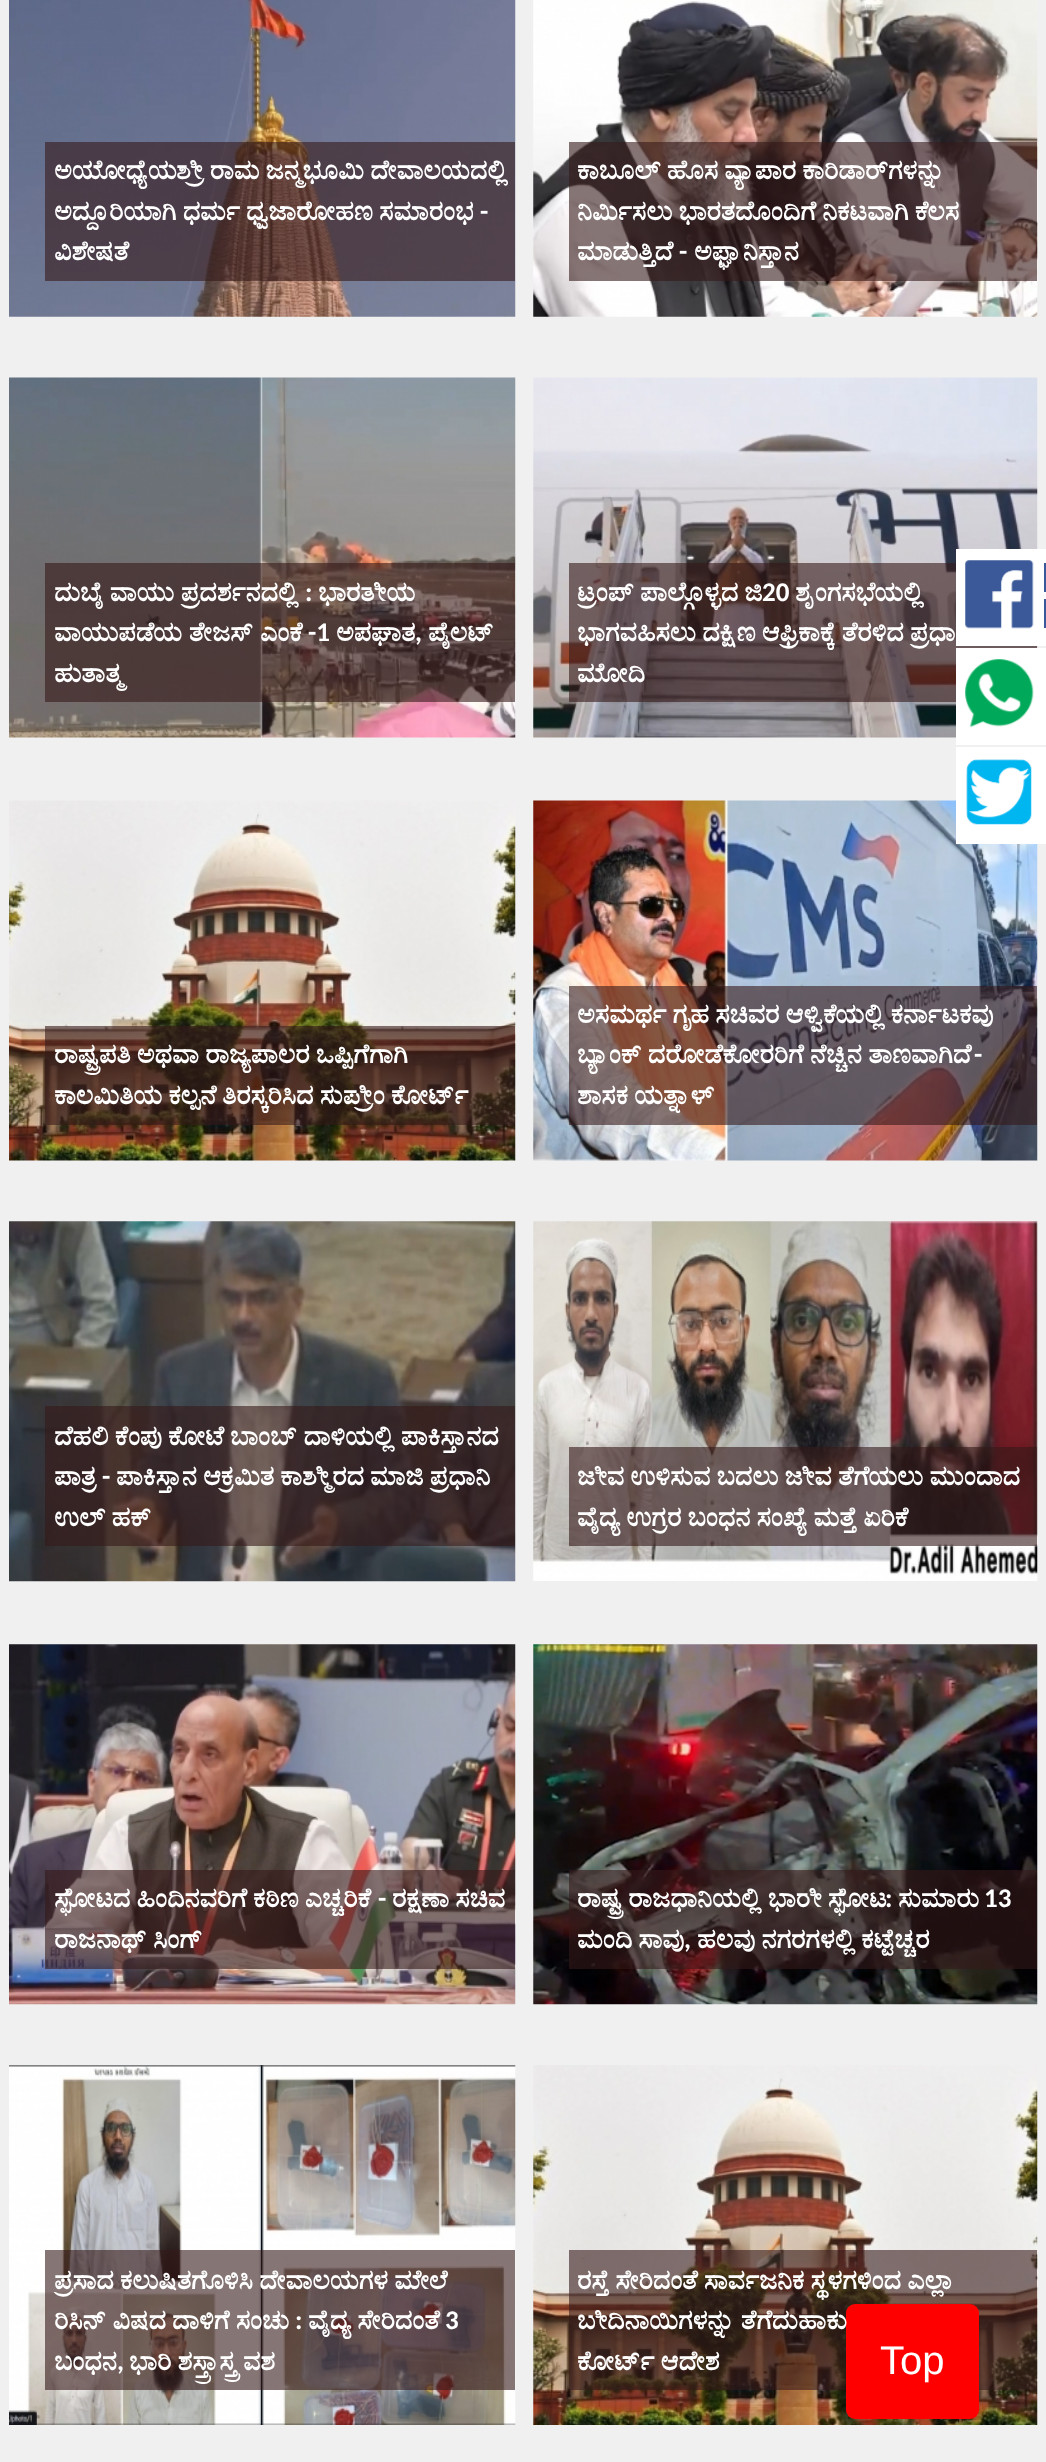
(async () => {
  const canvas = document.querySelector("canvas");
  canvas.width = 1046;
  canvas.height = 2462;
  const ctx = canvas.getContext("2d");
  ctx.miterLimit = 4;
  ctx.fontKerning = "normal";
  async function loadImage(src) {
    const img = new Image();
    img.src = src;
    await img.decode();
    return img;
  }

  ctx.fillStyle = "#f1f0f0";
  ctx.fillRect(0, 0, 1046, 2462);
  ctx.drawImage(await loadImage("img/1.png"), 9, 0, 507, 317);
  ctx.fillStyle = "rgba(54, 25, 25, 0.6)";
  ctx.fillRect(45, 142, 470, 139);
  ctx.drawImage(await loadImage("img/2.png"), 533, 0, 505, 317);
  ctx.fillRect(569, 142, 468, 139);
  ctx.drawImage(await loadImage("img/3.png"), 9, 377, 507, 361);
  ctx.fillRect(45, 563, 470, 139);
  ctx.drawImage(await loadImage("img/4.png"), 533, 377, 505, 361);
  ctx.fillRect(569, 563, 468, 139);
  ctx.drawImage(await loadImage("img/5.png"), 9, 800, 507, 361);
  ctx.fillRect(45, 1026, 470, 99);
  ctx.drawImage(await loadImage("img/6.png"), 533, 800, 505, 361);
  ctx.fillRect(569, 986, 468, 139);
  ctx.drawImage(await loadImage("img/7.png"), 9, 1221, 507, 361);
  ctx.fillRect(45, 1406, 470, 140);
  ctx.drawImage(await loadImage("img/8.png"), 533, 1221, 505, 360);
  ctx.fillRect(569, 1447, 468, 99);
  ctx.drawImage(await loadImage("img/9.png"), 9, 1644, 507, 361);
  ctx.fillRect(45, 1870, 470, 99);
  ctx.drawImage(await loadImage("img/10.png"), 533, 1644, 505, 361);
  ctx.fillRect(569, 1870, 468, 99);
  ctx.drawImage(await loadImage("img/11.png"), 9, 2065, 507, 360);
  ctx.fillRect(45, 2250, 470, 140);
  ctx.drawImage(await loadImage("img/12.png"), 533, 2065, 505, 360);
  ctx.fillRect(569, 2250, 468, 140);
  ctx.fillStyle = "#ffffff";
  ctx.fillRect(956, 549, 90, 97);
  ctx.drawImage(await loadImage("img/13.png"), 965, 560, 69, 69);
  for (const [x, y, w, h, color] of [
    [1044, 563, 2, 29, "#3b5998"],
    [1044, 599, 2, 29, "#3b5998"],
    [956, 648, 90, 97, "#ffffff"],
  ]) {
    ctx.fillStyle = color;
    ctx.fillRect(x, y, w, h);
  }
  ctx.drawImage(await loadImage("img/14.png"), 965, 659, 69, 69);
  ctx.fillRect(956, 747, 90, 97);
  ctx.drawImage(await loadImage("img/15.png"), 966, 759, 66, 66);
  ctx.fillStyle = "#ff0000";
  ctx.beginPath();
  ctx.roundRect(846, 2304, 133, 115, 9);
  ctx.fill();
  ctx.font = "bold 27px FreeSerif";
  ctx.fillStyle = "#ffffff";
  ctx.fillText("ಅಯೋಧ್ಯೆಯ", 54, 179);
  ctx.wordSpacing = "-0.5px";
  ctx.fillText("ಶ್ರೀ ರಾಮ ಜನ್ಮಭೂಮಿ ದೇವಾಲಯದಲ್ಲಿ", 176, 179);
  ctx.fillText("ಅದ್ದೂರಿಯಾಗಿ ಧರ್ಮ ಧ್ವಜಾರೋಹಣ ಸಮಾರಂಭ", 54, 220);
  ctx.wordSpacing = "0px";
  ctx.font = "bold 27px Carlito";
  ctx.fillText("-", 480, 220);
  ctx.font = "bold 27px FreeSerif";
  ctx.fillText("ವಿಶೇಷತೆ", 54, 260);
  ctx.wordSpacing = "-0.5px";
  ctx.fillText("ಕಾಬೂಲ್ ಹೊಸ ವ್ಯಾಪಾರ ಕಾರಿಡಾರ್", 577, 179);
  ctx.wordSpacing = "0px";
  ctx.fillText("ಗಳನ್ನು", 888, 179);
  ctx.wordSpacing = "-0.5px";
  ctx.fillText("ನಿರ್ಮಿಸಲು ಭಾರತದೊಂದಿಗೆ ನಿಕಟವಾಗಿ ಕೆಲಸ", 577, 220);
  ctx.wordSpacing = "0px";
  ctx.fillText("ಮಾಡುತ್ತಿದೆ", 577, 260);
  ctx.font = "bold 27px Carlito";
  ctx.fillText("-", 679, 260);
  ctx.font = "bold 27px FreeSerif";
  ctx.fillText("ಅಫ್ಘಾನಿಸ್ತಾನ", 694, 260);
  ctx.fillText("ದುಬೈ ವಾಯು ಪ್ರದರ್ಶನದಲ್ಲಿ", 54, 601);
  ctx.font = "bold 27px Carlito";
  ctx.fillText(":", 305, 601);
  ctx.font = "bold 27px FreeSerif";
  ctx.fillText("ಭಾರತೀಯ", 318, 601);
  ctx.fillText("ವಾಯುಪಡೆಯ ತೇಜಸ್ ಎಂಕೆ", 54, 641);
  ctx.font = "bold 27px Carlito";
  ctx.fillText("-1", 308, 641);
  ctx.font = "bold 27px FreeSerif";
  ctx.fillText("ಅಪಘಾತ", 336, 641);
  ctx.font = "bold 27px Carlito";
  ctx.fillText(",", 415, 641);
  ctx.font = "bold 27px FreeSerif";
  ctx.fillText("ಪೈಲಟ್", 428, 641);
  ctx.fillText("ಹುತಾತ್ಮ", 54, 682);
  ctx.save();
  ctx.beginPath();
  ctx.rect(569, 563, 468, 139);
  ctx.clip();
  ctx.wordSpacing = "-0.5px";
  ctx.fillText("ಟ್ರಂಪ್ ಪಾಲ್ಗೊಳ್ಳದ ಜಿ", 577, 601);
  ctx.restore();
  ctx.font = "bold 27px Carlito";
  ctx.fillText("20", 762, 601);
  ctx.font = "bold 27px FreeSerif";
  ctx.fillText("ಶೃಂಗಸಭೆಯಲ್ಲಿ", 795, 601);
  ctx.wordSpacing = "-0.5px";
  ctx.fillText("ಭಾಗವಹಿಸಲು ದಕ್ಷಿಣ ಆಫ್ರಿಕಾಕ್ಕೆ ತೆರಳಿದ ಪ್ರಧಾ", 577, 641);
  ctx.wordSpacing = "0px";
  ctx.fillText("ಮೋದಿ", 577, 682);
  ctx.wordSpacing = "-0.5px";
  for (const [text, x, y] of [
    ["ರಾಷ್ಟ್ರಪತಿ ಅಥವಾ ರಾಜ್ಯಪಾಲರ ಒಪ್ಪಿಗೆಗಾಗಿ", 54, 1063],
    ["ಕಾಲಮಿತಿಯ ಕಲ್ಪನೆ", 54, 1104],
    ["ತಿರಸ್ಕರಿಸಿದ ಸುಪ್ರೀಂ ಕೋರ್ಟ್", 222, 1104],
    ["ಅಸಮರ್ಥ ಗೃಹ ಸಚಿವರ ಆಳ್ವಿಕೆಯಲ್ಲಿ ಕರ್ನಾಟಕವು", 577, 1023],
  ]) {
    ctx.fillText(text, x, y);
  }
  ctx.save();
  ctx.beginPath();
  ctx.rect(569, 986, 468, 139);
  ctx.clip();
  ctx.fillText("ಬ್ಯಾಂಕ್ ದರೋಡೆಕೋರರಿಗೆ ನೆಚ್ಚಿನ ತಾಣವಾಗಿದೆ", 577, 1063);
  ctx.restore();
  ctx.wordSpacing = "0px";
  ctx.font = "bold 27px Carlito";
  ctx.fillText("-", 974, 1063);
  ctx.wordSpacing = "-0.5px";
  ctx.font = "bold 27px FreeSerif";
  ctx.fillText("ಶಾಸಕ ಯತ್ನಾಳ್", 577, 1104);
  ctx.fillText("ದೆಹಲಿ ಕೆಂಪು ಕೋಟೆ ಬಾಂಬ್ ದಾಳಿಯಲ್ಲಿ ಪಾಕಿಸ್ತಾನದ", 54, 1445);
  ctx.wordSpacing = "0px";
  ctx.fillText("ಪಾತ್ರ", 54, 1485);
  ctx.font = "bold 27px Carlito";
  ctx.fillText("-", 102, 1485);
  ctx.wordSpacing = "-0.5px";
  ctx.font = "bold 27px FreeSerif";
  for (const [text, x, y] of [
    ["ಪಾಕಿಸ್ತಾನ ಆಕ್ರಮಿತ ಕಾಶ್ಮೀರದ ಮಾಜಿ ಪ್ರಧಾನಿ", 116, 1485],
    ["ಉಲ್ ಹಕ್", 54, 1526],
    ["ಜೀವ ಉಳಿಸುವ ಬದಲು ಜೀವ ತೆಗೆಯಲು ಮುಂದಾದ", 577, 1485],
    ["ವೈದ್ಯ ಉಗ್ರರ ಬಂಧನ ಸಂಖ್ಯೆ ಮತ್ತೆ ಏರಿಕೆ", 577, 1526],
  ]) {
    ctx.fillText(text, x, y);
  }
  ctx.save();
  ctx.beginPath();
  ctx.rect(45, 1870, 470, 99);
  ctx.clip();
  ctx.fillText("ಸ್ಫೋಟದ ಹಿಂದಿನವರಿಗೆ ಕಠಿಣ ಎಚ್ಚರಿಕೆ", 54, 1907);
  ctx.restore();
  ctx.wordSpacing = "0px";
  ctx.font = "bold 27px Carlito";
  ctx.fillText("-", 378, 1907);
  ctx.wordSpacing = "-0.5px";
  ctx.font = "bold 27px FreeSerif";
  for (const [text, x, y] of [
    ["ರಕ್ಷಣಾ ಸಚಿವ", 392, 1907],
    ["ರಾಜನಾಥ್ ಸಿಂಗ್", 54, 1948],
    ["ರಾಷ್ಟ್ರ ರಾಜಧಾನಿಯಲ್ಲಿ ಭಾರೀ ಸ್ಫೋಟ", 577, 1907],
  ]) {
    ctx.fillText(text, x, y);
  }
  ctx.wordSpacing = "0px";
  ctx.font = "bold 27px Carlito";
  ctx.fillText(":", 885, 1907);
  ctx.font = "bold 27px FreeSerif";
  ctx.fillText("ಸುಮಾರು", 898, 1907);
  ctx.font = "bold 27px Carlito";
  ctx.fillText("13", 984, 1907);
  ctx.wordSpacing = "-0.5px";
  ctx.font = "bold 27px FreeSerif";
  ctx.fillText("ಮಂದಿ ಸಾವು", 577, 1948);
  ctx.wordSpacing = "0px";
  ctx.font = "bold 27px Carlito";
  ctx.fillText(",", 684, 1948);
  ctx.wordSpacing = "-0.5px";
  ctx.font = "bold 27px FreeSerif";
  ctx.fillText("ಹಲವು ನಗರಗಳಲ್ಲಿ ಕಟ್ಟೆಚ್ಚರ", 697, 1948);
  ctx.save();
  ctx.beginPath();
  ctx.rect(45, 2250, 470, 140);
  ctx.clip();
  ctx.fillText("ಪ್ರಸಾದ ಕಲುಷಿತಗೊಳಿಸಿ ದೇವಾಲಯಗಳ ಮೇಲೆ", 54, 2289);
  ctx.restore();
  ctx.fillText("ರಿಸಿನ್ ವಿಷದ ದಾಳಿಗೆ ಸಂಚು", 54, 2329);
  ctx.wordSpacing = "0px";
  ctx.font = "bold 27px Carlito";
  ctx.fillText(":", 295, 2329);
  ctx.wordSpacing = "-0.5px";
  ctx.font = "bold 27px FreeSerif";
  ctx.fillText("ವೈದ್ಯ ಸೇರಿದಂತೆ", 308, 2329);
  ctx.wordSpacing = "0px";
  ctx.font = "bold 27px Carlito";
  ctx.fillText("3", 445, 2329);
  ctx.font = "bold 27px FreeSerif";
  ctx.fillText("ಬಂಧನ", 54, 2370);
  ctx.font = "bold 27px Carlito";
  ctx.fillText(",", 117, 2370);
  ctx.wordSpacing = "-0.5px";
  ctx.font = "bold 27px FreeSerif";
  for (const [text, x, y] of [
    ["ಭಾರಿ ಶಸ್ತ್ರಾಸ್ತ್ರ ವಶ", 129, 2370],
    ["ರಸ್ತೆ ಸೇರಿದಂತೆ ಸಾರ್ವಜನಿಕ ಸ್ಥಳಗಳಿಂದ ಎಲ್ಲಾ", 577, 2289],
    ["ಬೀದಿನಾಯಿಗಳನ್ನು ತೆಗೆದುಹಾಕು", 577, 2329],
    ["ಕೋರ್ಟ್ ಆದೇಶ", 577, 2370],
  ]) {
    ctx.fillText(text, x, y);
  }
  ctx.wordSpacing = "0px";
  ctx.font = "40px Liberation Sans";
  ctx.fillText("Top", 880, 2374);
})();
